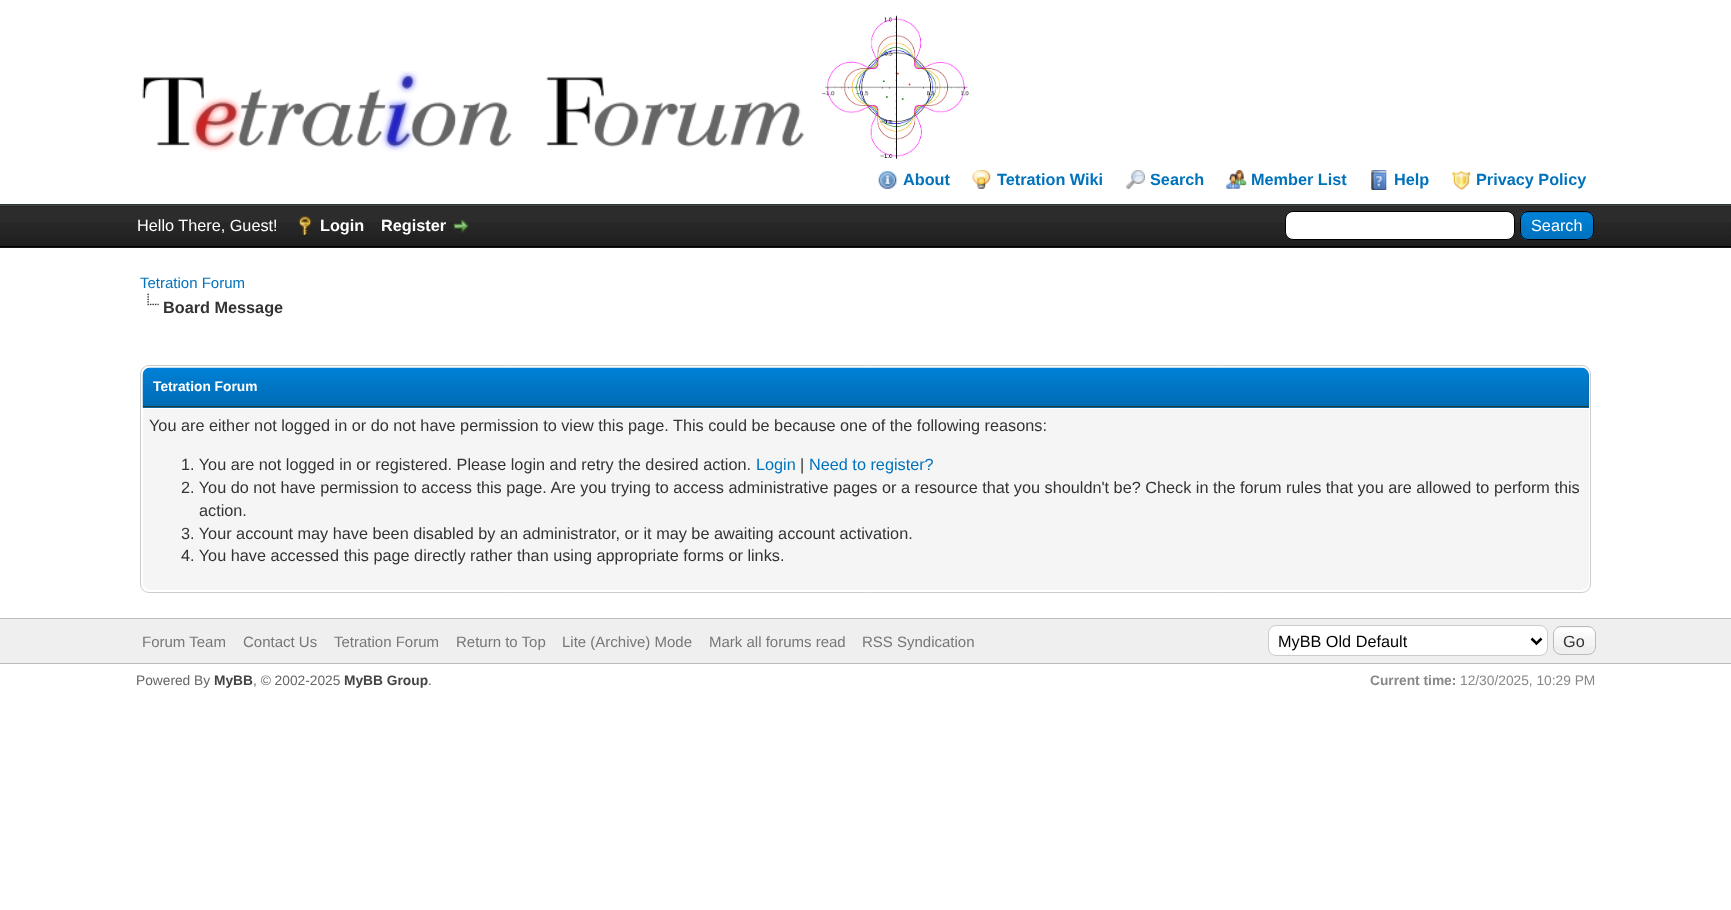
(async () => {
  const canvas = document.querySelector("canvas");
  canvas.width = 1731;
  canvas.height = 910;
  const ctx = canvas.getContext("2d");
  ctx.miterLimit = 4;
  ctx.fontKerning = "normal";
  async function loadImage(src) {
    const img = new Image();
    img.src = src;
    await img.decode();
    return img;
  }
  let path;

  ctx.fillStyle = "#ffffff";
  ctx.fillRect(0, 0, 1731, 910);
  ctx.fillStyle = "#263c30";
  ctx.fillRect(0, 204, 1731, 1);
  ctx.drawImage(await loadImage("img/1.png"), 142, 71, 662, 81);
  ctx.drawImage(await loadImage("img/2.png"), 822, 15, 147, 144);
  ctx.drawImage(await loadImage("img/3.png"), 878, 171, 19, 18);
  ctx.drawImage(await loadImage("img/4.png"), 972, 170, 19, 19);
  ctx.drawImage(await loadImage("img/5.png"), 1126, 170, 19, 19);
  ctx.drawImage(await loadImage("img/6.png"), 1226, 170, 21, 19);
  ctx.drawImage(await loadImage("img/7.png"), 1371, 170, 16, 20);
  ctx.drawImage(await loadImage("img/8.png"), 1452, 171, 19, 19);
  ctx.fillStyle = "#0f0f0f";
  ctx.fillRect(0, 206, 1731, 42);
  ctx.drawImage(await loadImage("img/9.png"), 0, 206, 1731, 42);
  ctx.fillStyle = "#444444";
  ctx.fillRect(0, 205, 1731, 1);
  ctx.fillStyle = "#000000";
  ctx.fillRect(0, 246, 1731, 1);
  ctx.drawImage(await loadImage("img/10.png"), 298, 216, 14, 19);
  ctx.drawImage(await loadImage("img/11.png"), 453, 220, 16, 13);
  ctx.fillStyle = "#ffffff";
  ctx.beginPath();
  ctx.roundRect(1285.5, 211.5, 229, 28, 7.5);
  ctx.fill();
  ctx.strokeStyle = "#000000";
  ctx.stroke();
  ctx.fillStyle = "#0066a2";
  ctx.beginPath();
  ctx.roundRect(1520, 211, 74, 29, 8);
  ctx.fill();
  ctx.drawImage(await loadImage("img/12.png"), 1520, 212, 74, 28);
  ctx.beginPath();
  ctx.roundRect(1520.5, 211.5, 73, 28, 7.5);
  ctx.stroke();
  ctx.drawImage(await loadImage("img/13.png"), 147, 293, 12, 13);
  ctx.beginPath();
  ctx.roundRect(140.5, 365.5, 1450, 227, 8.5);
  ctx.strokeStyle = "#cccccc";
  ctx.stroke();
  ctx.beginPath();
  ctx.roundRect(143, 368, 1446, 40, [8, 8, 0, 0]);
  ctx.fill();
  ctx.drawImage(await loadImage("img/14.png"), 142, 367, 1447, 41);
  ctx.fillStyle = "#263c30";
  ctx.fillRect(143, 406, 1446, 1);
  ctx.fillStyle = "#f5f5f5";
  ctx.beginPath();
  ctx.roundRect(143, 408, 1446, 182, [0, 0, 8, 8]);
  ctx.fill();
  for (const [x, y, w, h, color] of [
    [143, 408, 1446, 1, "#ffffff"],
    [0, 619, 1731, 44, "#efefef"],
    [0, 618, 1731, 1, "#bbbbbb"],
    [0, 663, 1731, 1, "#bbbbbb"],
  ]) {
    ctx.fillStyle = color;
    ctx.fillRect(x, y, w, h);
  }
  ctx.fillStyle = "#ffffff";
  ctx.beginPath();
  ctx.roundRect(1268.5, 625.5, 279, 30, 7.5);
  ctx.fill();
  ctx.stroke();
  path = new Path2D("M1531.5 638.5L1536.5 643.5L1541.5 638.5");
  ctx.strokeStyle = "#000000";
  ctx.lineWidth = 2.5;
  ctx.stroke(path);
  ctx.drawImage(await loadImage("img/15.png"), 1553, 627, 43, 19);
  ctx.beginPath();
  ctx.roundRect(1553.5, 626.5, 42, 28, 7.5);
  ctx.strokeStyle = "#bbbbbb";
  ctx.lineWidth = 1;
  ctx.stroke();
  ctx.font = "bold 16.25px Liberation Sans";
  ctx.fillStyle = "#0072bc";
  for (const [text, x, y] of [
    ["About", 903, 185],
    ["Tetration Wiki", 997, 185],
    ["Search", 1150, 185],
    ["Member List", 1251, 185],
    ["Help", 1394, 185],
    ["Privacy Policy", 1476, 185],
  ]) {
    ctx.fillText(text, x, y);
  }
  ctx.font = "16.25px Liberation Sans";
  ctx.fillStyle = "#ffffff";
  ctx.fillText("Hello There, Guest!", 137, 231);
  ctx.font = "bold 16.25px Liberation Sans";
  ctx.fillText("Login", 320, 231);
  ctx.fillText("Register", 381, 231);
  ctx.font = "16.25px Liberation Sans";
  ctx.fillText("Search", 1531, 231);
  ctx.font = "15px Liberation Sans";
  ctx.fillStyle = "#0072bc";
  ctx.fillText("Tetration Forum", 140, 288);
  ctx.font = "bold 16.25px Liberation Sans";
  ctx.fillStyle = "#333333";
  ctx.fillText("Board Message", 163, 313);
  ctx.font = "bold 13.75px Liberation Sans";
  ctx.fillStyle = "#ffffff";
  ctx.fillText("Tetration Forum", 153, 391);
  ctx.font = "16.25px Liberation Sans";
  ctx.fillStyle = "#333333";
  ctx.fillText("You are either not logged in or do not have permission to view this page. This could be because one of the following reasons:", 149, 431);
  ctx.fillText("1. You are not logged in or registered. Please login and retry the desired action.", 181, 470);
  ctx.fillStyle = "#0072bc";
  ctx.fillText("Login", 756, 470);
  ctx.fillStyle = "#333333";
  ctx.fillText("|", 800, 470);
  ctx.fillStyle = "#0072bc";
  ctx.fillText("Need to register?", 809, 470);
  ctx.fillStyle = "#333333";
  for (const [text, x, y] of [
    ["2. You do not have permission to access this page. Are you trying to access administrative pages or a resource that you shouldn't be? Check in the forum rules that you are allowed to perform this", 181, 493],
    ["action.", 199, 516],
    ["3. Your account may have been disabled by an administrator, or it may be awaiting account activation.", 181, 539],
    ["4. You have accessed this page directly rather than using appropriate forms or links.", 181, 561],
  ]) {
    ctx.fillText(text, x, y);
  }
  ctx.font = "15px Liberation Sans";
  ctx.fillStyle = "#777777";
  for (const [text, x, y] of [
    ["Forum Team", 142, 647],
    ["Contact Us", 243, 647],
    ["Tetration Forum", 334, 647],
    ["Return to Top", 456, 647],
    ["Lite (Archive) Mode", 562, 647],
    ["Mark all forums read", 709, 647],
    ["RSS Syndication", 862, 647],
  ]) {
    ctx.fillText(text, x, y);
  }
  ctx.font = "16.25px Liberation Sans";
  ctx.fillStyle = "#000000";
  ctx.fillText("MyBB Old Default", 1278, 647);
  ctx.fillStyle = "#333333";
  ctx.fillText("Go", 1563, 647);
  ctx.font = "13.75px Liberation Sans";
  ctx.fillStyle = "#666666";
  ctx.fillText("Powered By", 136, 685);
  ctx.font = "bold 13.75px Liberation Sans";
  ctx.fillStyle = "#444444";
  ctx.fillText("MyBB", 214, 685);
  ctx.font = "13.75px Liberation Sans";
  ctx.fillStyle = "#666666";
  ctx.fillText(", © 2002-2025", 253, 685);
  ctx.font = "bold 13.75px Liberation Sans";
  ctx.fillStyle = "#444444";
  ctx.fillText("MyBB Group", 344, 685);
  ctx.font = "13.75px Liberation Sans";
  ctx.fillStyle = "#666666";
  ctx.fillText(".", 428, 685);
  ctx.font = "bold 13.75px Liberation Sans";
  ctx.fillStyle = "#888888";
  ctx.fillText("Current time:", 1370, 685);
  ctx.font = "13.75px Liberation Sans";
  ctx.fillText("12/30/2025, 10:29 PM", 1460, 685);
})();
